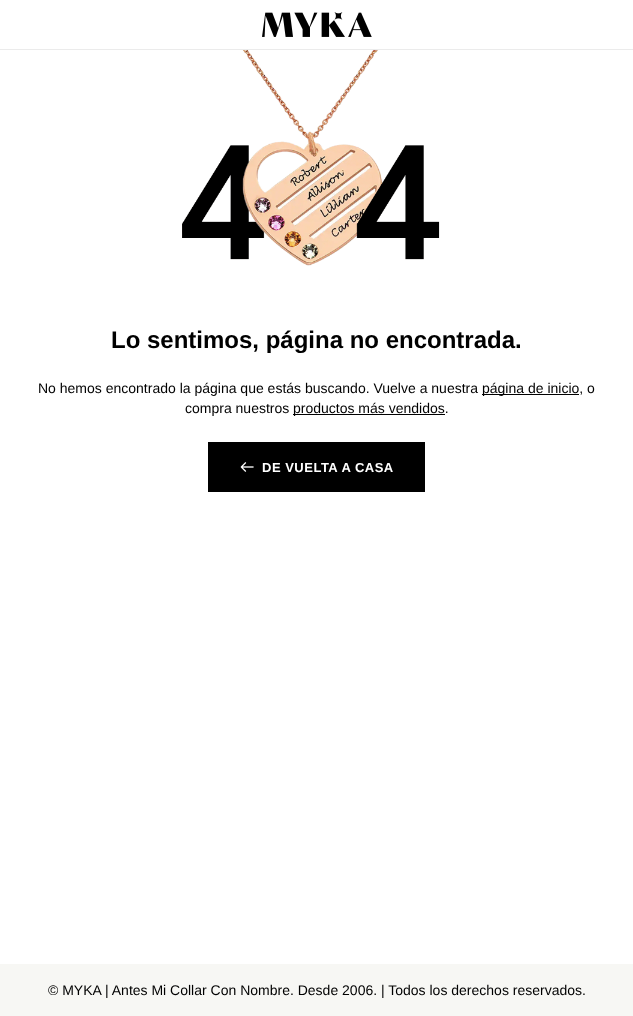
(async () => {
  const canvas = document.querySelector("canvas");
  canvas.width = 633;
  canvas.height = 1016;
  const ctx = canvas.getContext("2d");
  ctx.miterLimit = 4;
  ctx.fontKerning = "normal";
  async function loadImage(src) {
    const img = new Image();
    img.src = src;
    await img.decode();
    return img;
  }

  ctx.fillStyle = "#ffffff";
  ctx.fillRect(0, 0, 633, 1016);
  ctx.drawImage(await loadImage("img/1.png"), 262, 12, 110, 25);
  ctx.fillStyle = "#ebebeb";
  ctx.fillRect(0, 49, 633, 1);
  ctx.drawImage(await loadImage("img/2.png"), 182, 50, 258, 216);
  for (const [x, y, w, h, color] of [
    [482, 394, 97, 1, "#000000"],
    [293, 414, 152, 1, "#000000"],
    [208, 442, 217, 50, "#000000"],
  ]) {
    ctx.fillStyle = color;
    ctx.fillRect(x, y, w, h);
  }
  ctx.drawImage(await loadImage("img/3.png"), 240, 462, 14, 10);
  ctx.fillStyle = "#f7f7f4";
  ctx.fillRect(0, 964, 633, 52);
  ctx.font = "bold 24px Liberation Sans";
  ctx.fillStyle = "#000000";
  ctx.fillText("Lo sentimos, página no encontrada.", 111, 348);
  ctx.font = "14px Liberation Sans";
  for (const [text, x, y] of [
    ["No hemos encontrado la página que estás buscando. Vuelve a nuestra", 38, 393],
    ["página de inicio, o", 482, 393],
    ["compra nuestros", 185, 413],
    ["productos más vendidos.", 293, 413],
  ]) {
    ctx.fillText(text, x, y);
  }
  ctx.letterSpacing = "0.5px";
  ctx.font = "bold 13px Liberation Sans";
  ctx.fillStyle = "#ffffff";
  ctx.fillText("DE VUELTA A CASA", 262, 472);
  ctx.letterSpacing = "0px";
  ctx.font = "14px Liberation Sans";
  ctx.fillStyle = "#000000";
  ctx.fillText("© MYKA | Antes Mi Collar Con Nombre. Desde 2006. | Todos los derechos reservados.", 48, 995);
})();
